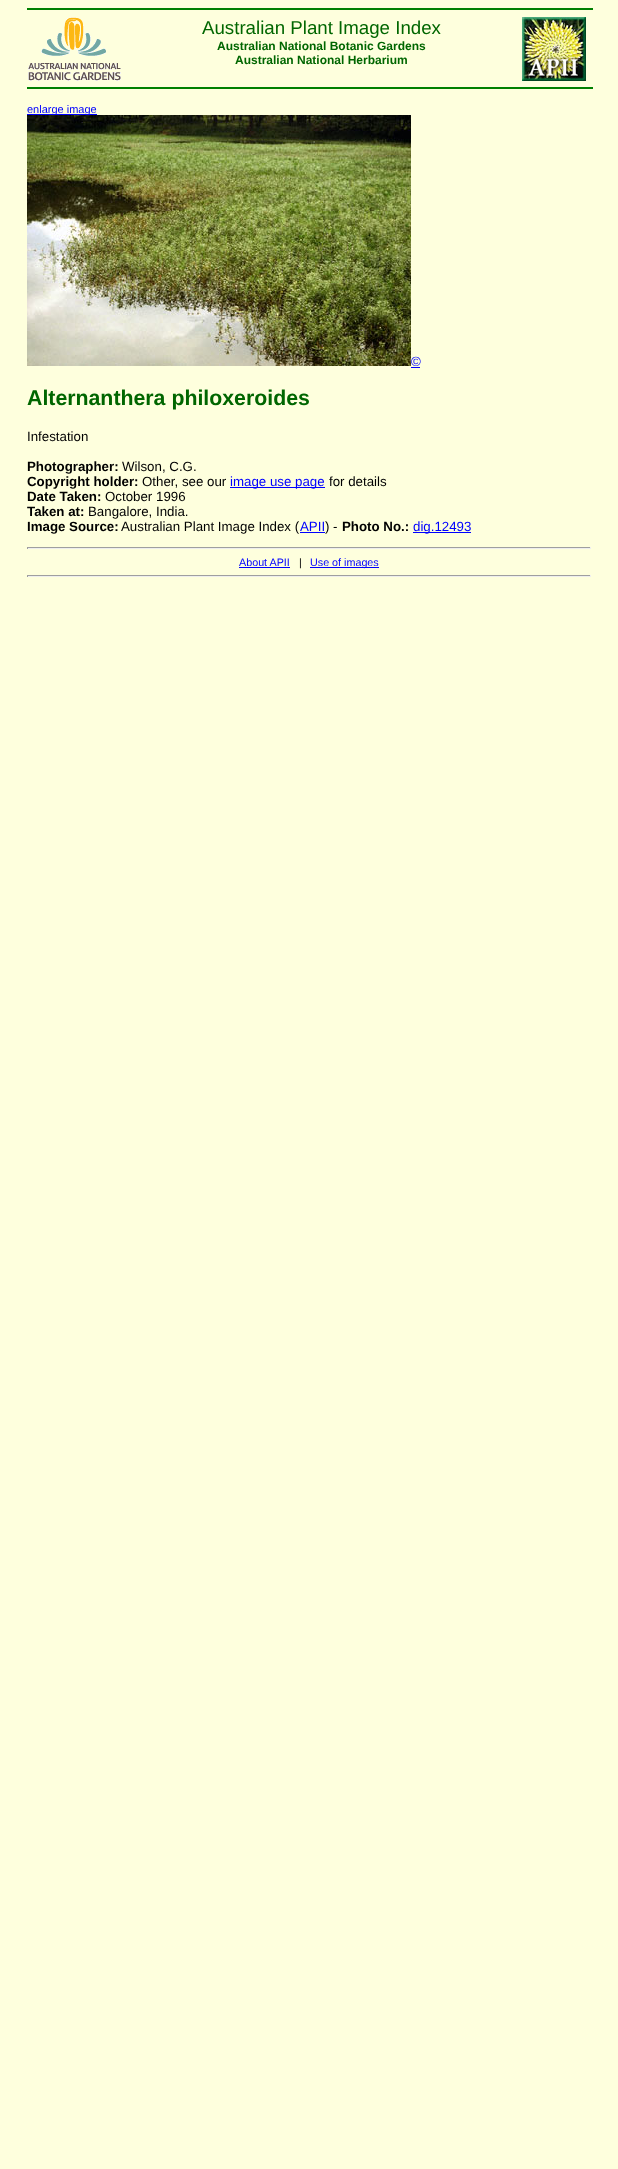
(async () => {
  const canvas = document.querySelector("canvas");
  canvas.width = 618;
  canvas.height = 2169;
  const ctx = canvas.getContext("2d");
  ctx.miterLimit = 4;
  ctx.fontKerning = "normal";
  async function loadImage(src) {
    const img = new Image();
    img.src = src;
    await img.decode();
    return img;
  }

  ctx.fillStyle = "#feffdd";
  ctx.fillRect(0, 0, 618, 2169);
  ctx.fillStyle = "#008000";
  ctx.fillRect(27, 8, 566, 2);
  ctx.drawImage(await loadImage("img/1.png"), 28, 17, 93, 64);
  ctx.drawImage(await loadImage("img/2.png"), 522, 17, 64, 64);
  for (const [x, y, w, h, color] of [
    [27, 87, 566, 2, "#008000"],
    [27, 114, 70, 1, "#0000ff"],
    [411, 367, 9, 1, "#0000ff"],
    [230, 487, 95, 1, "#0000ff"],
    [300, 532, 25, 1, "#0000ff"],
    [413, 532, 58, 1, "#0000ff"],
    [27, 547, 564, 1, "#9f9f9f"],
    [590, 547, 1, 2, "#eeeeee"],
    [27, 548, 564, 1, "#eeeeee"],
    [27, 547, 1, 2, "#9f9f9f"],
    [239, 567, 51, 1, "#0000ff"],
    [310, 567, 69, 1, "#0000ff"],
    [27, 575, 564, 1, "#9f9f9f"],
    [590, 575, 1, 2, "#eeeeee"],
    [27, 576, 564, 1, "#eeeeee"],
    [27, 575, 1, 2, "#9f9f9f"],
  ]) {
    ctx.fillStyle = color;
    ctx.fillRect(x, y, w, h);
  }
  ctx.font = "18.7px Liberation Sans";
  ctx.fillStyle = "#006600";
  ctx.fillText("Australian Plant Image Index", 202, 34);
  ctx.font = "bold 12px Liberation Sans";
  ctx.fillText("Australian National Botanic Gardens", 217, 50);
  ctx.fillText("Australian National Herbarium", 235, 64);
  ctx.font = "11px Liberation Sans";
  ctx.fillStyle = "#0000ff";
  ctx.fillText("enlarge image", 27, 113);
  ctx.drawImage(await loadImage("img/3.png"), 27, 115, 384, 251);
  ctx.font = "13.3px Liberation Sans";
  ctx.fillText("©", 411, 366);
  ctx.font = "bold 21.3px Liberation Sans";
  ctx.fillStyle = "#006600";
  ctx.fillText("Alternanthera philoxeroides", 27, 405);
  ctx.font = "13.3px Liberation Sans";
  ctx.fillStyle = "#000000";
  ctx.fillText("Infestation", 27, 441);
  ctx.font = "bold 13.3px Liberation Sans";
  ctx.fillText("Photographer:", 27, 471);
  ctx.font = "13.3px Liberation Sans";
  ctx.fillText("Wilson, C.G.", 122, 471);
  ctx.font = "bold 13.3px Liberation Sans";
  ctx.fillText("Copyright holder:", 27, 486);
  ctx.font = "13.3px Liberation Sans";
  ctx.fillText("Other, see our", 142, 486);
  ctx.fillStyle = "#0000ff";
  ctx.fillText("image use page", 230, 486);
  ctx.fillStyle = "#000000";
  ctx.fillText("for details", 329, 486);
  ctx.font = "bold 13.3px Liberation Sans";
  ctx.fillText("Date Taken:", 27, 501);
  ctx.font = "13.3px Liberation Sans";
  ctx.fillText("October 1996", 105, 501);
  ctx.font = "bold 13.3px Liberation Sans";
  ctx.fillText("Taken at:", 27, 516);
  ctx.font = "13.3px Liberation Sans";
  ctx.fillText("Bangalore, India.", 88, 516);
  ctx.font = "bold 13.3px Liberation Sans";
  ctx.fillText("Image Source:", 27, 531);
  ctx.font = "13.3px Liberation Sans";
  ctx.fillText("Australian Plant Image Index (", 121, 531);
  ctx.fillStyle = "#0000ff";
  ctx.fillText("APII", 300, 531);
  ctx.fillStyle = "#000000";
  ctx.fillText(") -", 325, 531);
  ctx.font = "bold 13.3px Liberation Sans";
  ctx.fillText("Photo No.:", 342, 531);
  ctx.font = "13.3px Liberation Sans";
  ctx.fillStyle = "#0000ff";
  ctx.fillText("dig.12493", 413, 531);
  ctx.font = "10.75px Liberation Sans";
  ctx.fillText("About APII", 239, 566);
  ctx.fillStyle = "#000000";
  ctx.fillText("|", 299, 566);
  ctx.fillStyle = "#0000ff";
  ctx.fillText("Use of images", 310, 566);
})();
